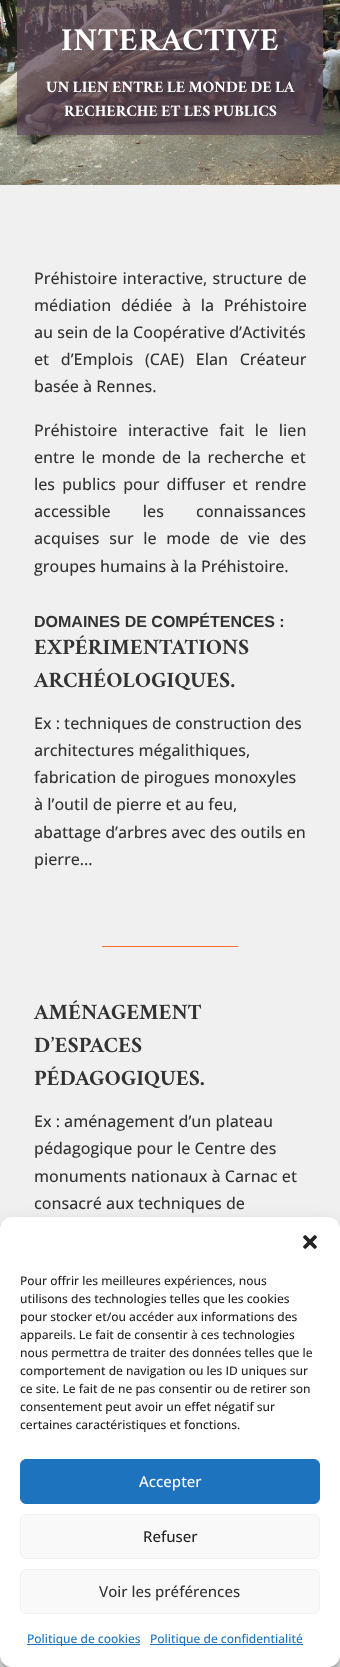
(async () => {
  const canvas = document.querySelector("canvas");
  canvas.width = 340;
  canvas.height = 1667;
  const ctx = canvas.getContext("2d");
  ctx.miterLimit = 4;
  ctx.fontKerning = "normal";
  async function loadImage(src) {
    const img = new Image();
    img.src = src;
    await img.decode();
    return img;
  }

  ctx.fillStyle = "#ffffff";
  ctx.fillRect(0, 0, 340, 1667);
  ctx.drawImage(await loadImage("img/1.png"), 0, 0, 340, 185);
  for (const [x, y, w, h, color] of [
    [17, 0, 306, 135, "rgba(93, 71, 88, 0.7)"],
    [0, 185, 340, 1482, "#f0f0f0"],
    [102, 946, 136, 1, "#ff6c2c"],
  ]) {
    ctx.fillStyle = color;
    ctx.fillRect(x, y, w, h);
  }
  ctx.fillStyle = "rgba(0, 0, 0, 0.23)";
  ctx.filter = "blur(3px)";
  ctx.beginPath();
  ctx.roundRect(0, 1223, 340, 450, 12);
  ctx.fill();
  ctx.filter = "none";
  ctx.fillStyle = "rgba(0, 0, 0, 0.19)";
  ctx.filter = "blur(10px)";
  ctx.beginPath();
  ctx.roundRect(0, 1227, 340, 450, 12);
  ctx.fill();
  ctx.filter = "none";
  ctx.fillStyle = "#ffffff";
  ctx.beginPath();
  ctx.roundRect(0, 1217, 340, 450, 12);
  ctx.fill();
  ctx.drawImage(await loadImage("img/2.png"), 303, 1235, 14, 14);
  ctx.fillStyle = "#1e73be";
  ctx.beginPath();
  ctx.roundRect(20.5, 1459.5, 299, 44, 5.5);
  ctx.fill();
  ctx.strokeStyle = "#1e73be";
  ctx.stroke();
  ctx.fillStyle = "#f9f9f9";
  ctx.beginPath();
  ctx.roundRect(20.5, 1514.5, 299, 44, 5.5);
  ctx.fill();
  ctx.strokeStyle = "#f2f2f2";
  ctx.stroke();
  ctx.beginPath();
  ctx.roundRect(20.5, 1569.5, 299, 44, 5.5);
  ctx.fill();
  ctx.stroke();
  ctx.fillStyle = "#1e73be";
  ctx.fillRect(27, 1644, 113, 1);
  ctx.fillRect(150, 1644, 153, 1);
  ctx.letterSpacing = "1px";
  ctx.font = "bold 32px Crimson";
  ctx.fillStyle = "#ffffff";
  ctx.fillText("INTERACTIVE", 61, 50);
  ctx.letterSpacing = "0px";
  ctx.font = "bold 16px Crimson";
  ctx.fillText("UN LIEN ENTRE LE MONDE DE LA", 46, 92);
  ctx.fillText("RECHERCHE ET LES PUBLICS", 64, 116);
  ctx.wordSpacing = "1px";
  ctx.font = "500 16px Open Sans";
  ctx.fillStyle = "#333333";
  ctx.fillText("Préhistoire interactive, structure de", 34, 284);
  ctx.wordSpacing = "5.5px";
  ctx.fillText("médiation dédiée à la Préhistoire", 34, 311);
  ctx.wordSpacing = "0px";
  ctx.fillText("au sein de la Coopérative d’Activités", 34, 338);
  ctx.wordSpacing = "7.5px";
  ctx.fillText("et d’Emplois (CAE) Elan Créateur", 34, 365);
  ctx.wordSpacing = "0px";
  ctx.fillText("basée à Rennes.", 34, 392);
  ctx.wordSpacing = "6.5px";
  ctx.fillText("Préhistoire interactive fait le lien", 34, 436);
  ctx.wordSpacing = "2.5px";
  ctx.fillText("entre le monde de la recherche et", 34, 463);
  ctx.wordSpacing = "3px";
  ctx.fillText("les publics pour diffuser et rendre", 34, 490);
  ctx.wordSpacing = "28px";
  ctx.fillText("accessible les connaissances", 34, 517);
  ctx.wordSpacing = "5.5px";
  ctx.fillText("acquises sur le mode de vie des", 34, 544);
  ctx.wordSpacing = "0px";
  ctx.fillText("groupes humains à la Préhistoire.", 34, 572);
  ctx.font = "bold 16px Liberation Sans";
  ctx.fillText("DOMAINES DE COMPÉTENCES :", 34, 627);
  ctx.font = "bold 22px Crimson";
  ctx.fillText("EXPÉRIMENTATIONS", 34, 654);
  ctx.fillText("ARCHÉOLOGIQUES.", 34, 687);
  ctx.font = "500 16px Open Sans";
  for (const [text, x, y] of [
    ["Ex : techniques de construction des", 34, 729],
    ["architectures mégalithiques,", 34, 756],
    ["fabrication de pirogues monoxyles", 34, 783],
    ["à l’outil de pierre et au feu,", 34, 810],
    ["abattage d’arbres avec des outils en", 34, 838],
    ["pierre…", 34, 865],
  ]) {
    ctx.fillText(text, x, y);
  }
  ctx.font = "bold 22px Crimson";
  for (const [text, x, y] of [
    ["AMÉNAGEMENT", 34, 1019],
    ["D’ESPACES", 34, 1052],
    ["PÉDAGOGIQUES.", 34, 1085],
  ]) {
    ctx.fillText(text, x, y);
  }
  ctx.font = "500 16px Open Sans";
  for (const [text, x, y] of [
    ["Ex : aménagement d’un plateau", 34, 1127],
    ["pédagogique pour le Centre des", 34, 1154],
    ["monuments nationaux à Carnac et", 34, 1182],
    ["consacré aux techniques de", 34, 1209],
  ]) {
    ctx.fillText(text, x, y);
  }
  ctx.font = "500 12px Open Sans";
  ctx.fillStyle = "#222222";
  for (const [text, x, y] of [
    ["Pour offrir les meilleures expériences, nous", 20, 1285],
    ["utilisons des technologies telles que les cookies", 20, 1303],
    ["pour stocker et/ou accéder aux informations des", 20, 1321],
    ["appareils. Le fait de consentir à ces technologies", 20, 1339],
    ["nous permettra de traiter des données telles que le", 20, 1357],
    ["comportement de navigation ou les ID uniques sur", 20, 1375],
    ["ce site. Le fait de ne pas consentir ou de retirer son", 20, 1393],
    ["consentement peut avoir un effet négatif sur", 20, 1411],
    ["certaines caractéristiques et fonctions.", 20, 1429],
  ]) {
    ctx.fillText(text, x, y);
  }
  ctx.font = "500 15px Open Sans";
  ctx.fillStyle = "#ffffff";
  ctx.fillText("Accepter", 139, 1487);
  ctx.fillStyle = "#222222";
  ctx.fillText("Refuser", 143, 1542);
  ctx.fillStyle = "#333333";
  ctx.fillText("Voir les préférences", 99, 1597);
  ctx.font = "500 12px Open Sans";
  ctx.fillStyle = "#1e73be";
  ctx.fillText("Politique de cookies", 27, 1643);
  ctx.fillText("Politique de confidentialité", 150, 1643);
})();
